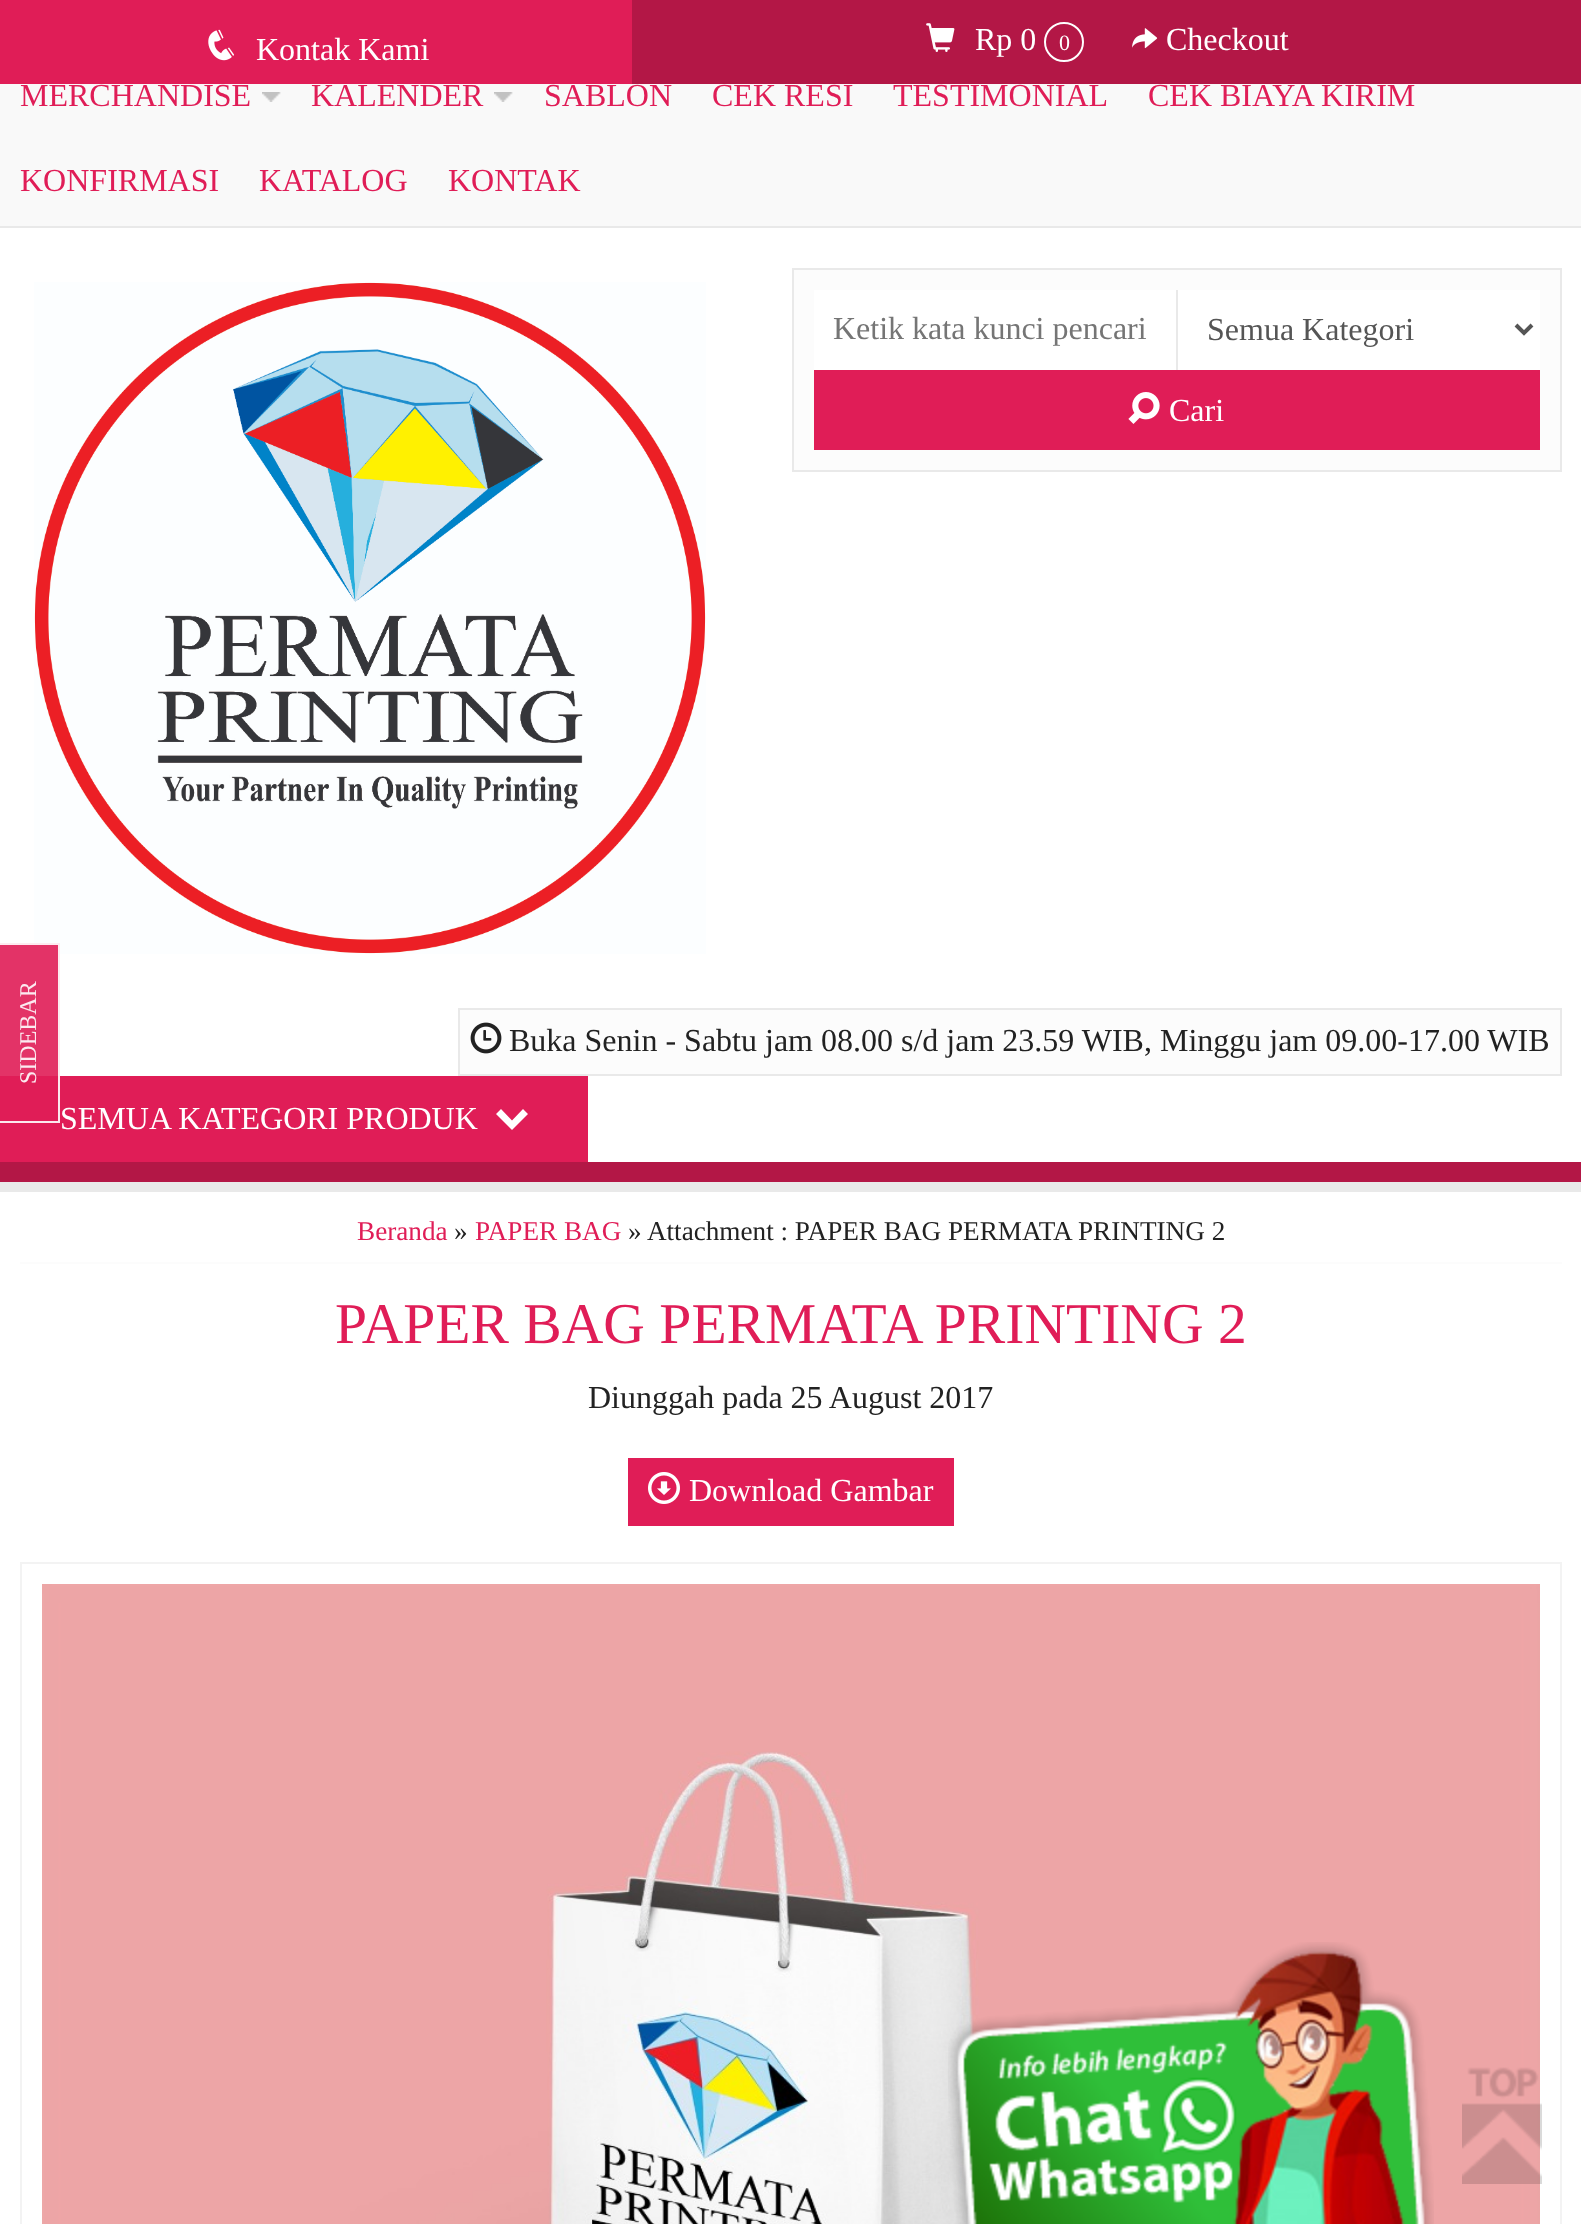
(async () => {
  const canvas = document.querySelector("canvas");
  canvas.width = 1581;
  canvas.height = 2224;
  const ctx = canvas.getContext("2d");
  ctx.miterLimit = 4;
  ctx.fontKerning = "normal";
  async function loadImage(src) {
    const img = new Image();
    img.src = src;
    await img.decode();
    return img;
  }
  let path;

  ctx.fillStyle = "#f9f9f9";
  ctx.fillRect(0, 0, 1581, 2224);
  ctx.fillStyle = "#e01d57";
  ctx.fillRect(0, 0, 632, 84);
  ctx.drawImage(await loadImage("img/1.png"), 208, 29, 26, 32);
  ctx.fillStyle = "#b31746";
  ctx.fillRect(632, 0, 949, 84);
  ctx.drawImage(await loadImage("img/2.png"), 926, 23, 29, 29);
  ctx.beginPath();
  ctx.arc(1064, 42, 19, 0, Math.PI * 2);
  ctx.strokeStyle = "#ffffff";
  ctx.lineWidth = 2;
  ctx.stroke();
  ctx.drawImage(await loadImage("img/3.png"), 1132, 28, 26, 21);
  ctx.fillStyle = "#e9e9e9";
  ctx.fillRect(0, 226, 1581, 2);
  ctx.drawImage(await loadImage("img/4.png"), 262, 92, 19, 10);
  ctx.drawImage(await loadImage("img/4.png"), 494, 92, 19, 10);
  ctx.fillStyle = "#ffffff";
  ctx.fillRect(0, 228, 1581, 934);
  ctx.drawImage(await loadImage("img/5.png"), 34, 282, 672, 672);
  ctx.fillStyle = "#fcfcfc";
  ctx.beginPath();
  ctx.rect(793, 269, 768, 202);
  ctx.fill();
  ctx.strokeStyle = "#e9e9e9";
  ctx.stroke();
  for (const [x, y, w, h, color] of [
    [814, 290, 362, 80, "#ffffff"],
    [1178, 290, 362, 80, "#ffffff"],
    [1176, 290, 2, 80, "#e9e9e9"],
  ]) {
    ctx.fillStyle = color;
    ctx.fillRect(x, y, w, h);
  }
  path = new Path2D("M1516 325L1524 333L1532 325");
  ctx.strokeStyle = "#555555";
  ctx.lineWidth = 4;
  ctx.stroke(path);
  ctx.fillStyle = "#e01d57";
  ctx.fillRect(814, 370, 726, 80);
  ctx.drawImage(await loadImage("img/6.png"), 1128, 392, 32, 32);
  ctx.fillStyle = "#fcfcfc";
  ctx.beginPath();
  ctx.rect(459, 1009, 1102, 66);
  ctx.fill();
  ctx.strokeStyle = "#e9e9e9";
  ctx.lineWidth = 2;
  ctx.stroke();
  ctx.drawImage(await loadImage("img/7.png"), 470, 1022, 32, 32);
  ctx.fillStyle = "#e01d57";
  ctx.fillRect(0, 1076, 588, 86);
  ctx.fillStyle = "#ffffff";
  path = new Path2D("M512 1130L528 1114L523 1109L512 1120.5L501 1109L496 1114Z");
  ctx.fill(path);
  for (const [x, y, w, h, color] of [
    [0, 1162, 1581, 20, "#b31746"],
    [0, 1192, 1581, 1032, "#ffffff"],
    [0, 1182, 1581, 10, "#e9e9e9"],
    [0, 943, 60, 133, "rgba(224, 29, 87, 0.9)"],
  ]) {
    ctx.fillStyle = color;
    ctx.fillRect(x, y, w, h);
  }
  path = new Path2D("M-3 1122V944H59V1122Z");
  ctx.strokeStyle = "rgba(255, 255, 255, 0.9)";
  ctx.stroke(path);
  ctx.fillStyle = "#fcfcfc";
  ctx.fillRect(20, 1262, 1542, 2);
  ctx.fillStyle = "#e01d57";
  ctx.fillRect(628, 1458, 326, 68);
  ctx.drawImage(await loadImage("img/8.png"), 648, 1472, 32, 32);
  ctx.strokeStyle = "#f3f3f3";
  ctx.strokeRect(21, 1563, 1540, 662);
  ctx.drawImage(await loadImage("img/9.png"), 42, 1584, 1498, 640);
  ctx.drawImage(await loadImage("img/10.png"), 948, 1942, 486, 282);
  ctx.drawImage(await loadImage("img/11.png"), 1462, 2067, 80, 117);
  ctx.font = "32px Liberation Serif";
  ctx.fillStyle = "#ffffff";
  ctx.fillText("Kontak Kami", 256, 60);
  ctx.fillText("Rp 0", 975, 50);
  ctx.font = "22px Liberation Serif";
  ctx.fillText("0", 1059, 50);
  ctx.font = "32px Liberation Serif";
  ctx.fillText("Checkout", 1166, 50);
  ctx.fillStyle = "#e01d57";
  for (const [text, x, y] of [
    ["MERCHANDISE", 20, 106],
    ["KALENDER", 311, 106],
    ["SABLON", 544, 106],
    ["CEK RESI", 712, 106],
    ["TESTIMONIAL", 893, 106],
    ["CEK BIAYA KIRIM", 1148, 106],
    ["KONFIRMASI", 20, 191],
    ["KATALOG", 259, 191],
    ["KONTAK", 448, 191],
  ]) {
    ctx.fillText(text, x, y);
  }
  ctx.fillStyle = "#757575";
  ctx.fillText("Ketik kata kunci pencari", 833, 339);
  ctx.fillStyle = "#555555";
  ctx.fillText("Semua Kategori", 1207, 340);
  ctx.fillStyle = "#ffffff";
  ctx.fillText("Cari", 1169, 421);
  ctx.fillStyle = "#222222";
  ctx.fillText("Buka Senin - Sabtu jam 08.00 s/d jam 23.59 WIB, Minggu jam 09.00-17.00 WIB", 509, 1051);
  ctx.fillStyle = "#ffffff";
  ctx.fillText("SEMUA KATEGORI PRODUK", 60, 1129);
  ctx.font = "24px Liberation Serif";
  ctx.fillStyle = "#fceaf0";
  ctx.save();
  ctx.translate(36, 1084);
  ctx.rotate(-90 * Math.PI / 180);
  ctx.fillText("SIDEBAR", 0, 0);
  ctx.restore();
  ctx.font = "27.2px Liberation Serif";
  ctx.fillStyle = "#e01d57";
  ctx.fillText("Beranda", 357, 1240);
  ctx.fillStyle = "#222222";
  ctx.fillText("»", 454, 1240);
  ctx.fillStyle = "#e01d57";
  ctx.fillText("PAPER BAG", 475, 1240);
  ctx.fillStyle = "#222222";
  ctx.fillText("» Attachment : PAPER BAG PERMATA PRINTING 2", 628, 1240);
  ctx.font = "57.6px Liberation Serif";
  ctx.fillStyle = "#e01d57";
  ctx.fillText("PAPER BAG PERMATA PRINTING 2", 335, 1343);
  ctx.font = "32px Liberation Serif";
  ctx.fillStyle = "#222222";
  ctx.fillText("Diunggah pada 25 August 2017", 588, 1408);
  ctx.fillStyle = "#ffffff";
  ctx.fillText("Download Gambar", 689, 1501);
})();
